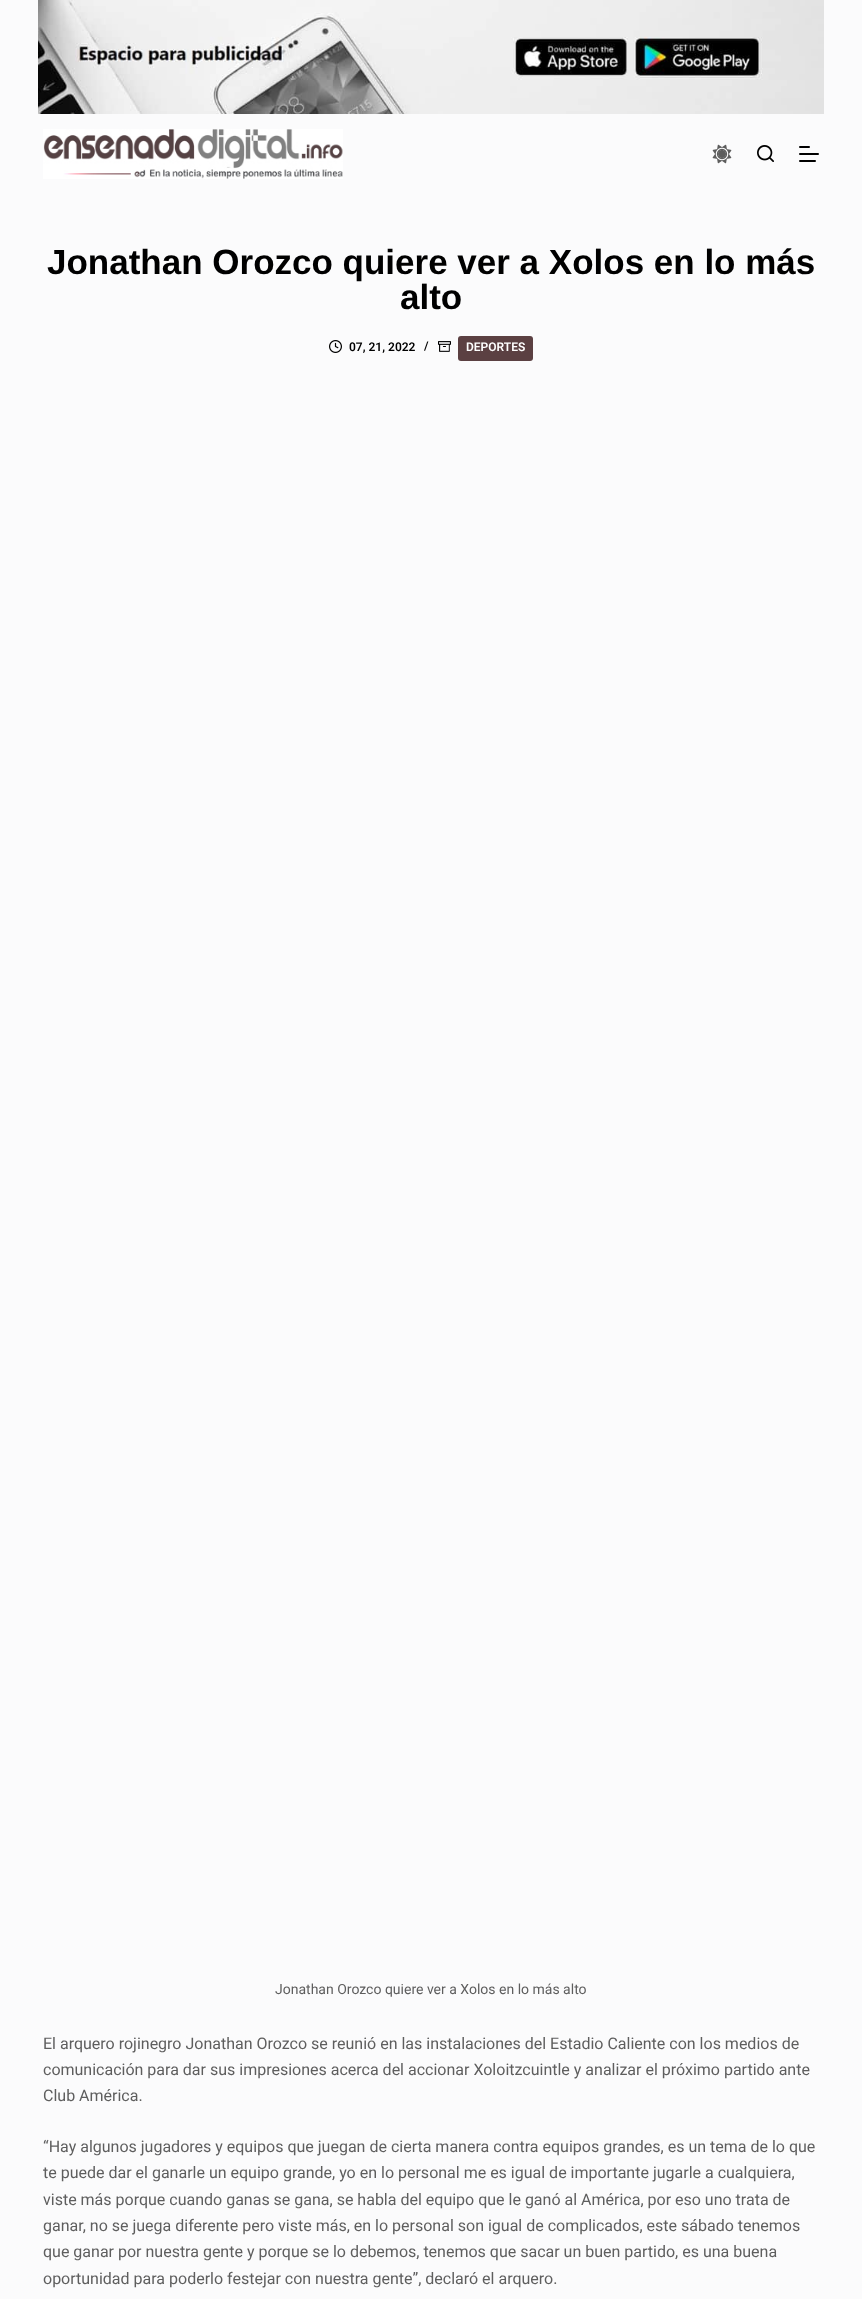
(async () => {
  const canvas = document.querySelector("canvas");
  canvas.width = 862;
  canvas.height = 2299;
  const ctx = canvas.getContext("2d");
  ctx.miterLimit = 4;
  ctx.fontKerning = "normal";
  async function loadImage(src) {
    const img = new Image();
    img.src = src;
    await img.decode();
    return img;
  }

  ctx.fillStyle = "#fbfbfc";
  ctx.fillRect(0, 0, 862, 2299);
  ctx.drawImage(await loadImage("img/1.png"), 38, 0, 786, 114);
  ctx.drawImage(await loadImage("img/2.png"), 43, 129, 300, 50);
  ctx.drawImage(await loadImage("img/3.png"), 712, 144, 20, 20);
  ctx.drawImage(await loadImage("img/4.png"), 757, 145, 17, 17);
  ctx.fillStyle = "#000000";
  ctx.beginPath();
  ctx.roundRect(799, 146, 11, 2, 1);
  ctx.fill();
  ctx.beginPath();
  ctx.roundRect(799, 153, 20, 2, 1);
  ctx.fill();
  ctx.beginPath();
  ctx.roundRect(799, 160, 17, 2, 1);
  ctx.fill();
  ctx.drawImage(await loadImage("img/5.png"), 329, 340, 13, 13);
  ctx.drawImage(await loadImage("img/6.png"), 438, 341, 13, 11);
  ctx.fillStyle = "#5b4042";
  ctx.beginPath();
  ctx.roundRect(458, 336, 75, 25, 3);
  ctx.fill();
  ctx.font = "bold 35px Liberation Sans";
  ctx.fillStyle = "#000000";
  ctx.fillText("Jonathan Orozco quiere ver a Xolos en lo más", 47, 274);
  ctx.fillText("alto", 400, 309);
  ctx.font = "600 12px Roboto";
  ctx.fillText("07, 21, 2022", 349, 351);
  ctx.fillText("/", 424, 350);
  ctx.fillStyle = "#ffffff";
  ctx.fillText("DEPORTES", 466, 351);
  ctx.font = "14px Roboto";
  ctx.fillStyle = "#5e5e5e";
  ctx.fillText("Jonathan Orozco quiere ver a Xolos en lo más alto", 275, 1994);
  ctx.font = "16px Roboto";
  for (const [text, x, y] of [
    ["El arquero rojinegro Jonathan Orozco se reunió en las instalaciones del Estadio Caliente con los medios de", 43, 2049],
    ["comunicación para dar sus impresiones acerca del accionar Xoloitzcuintle y analizar el próximo partido ante", 43, 2075],
    ["Club América.", 43, 2101],
    ["“Hay algunos jugadores y equipos que juegan de cierta manera contra equipos grandes, es un tema de lo que", 43, 2152],
    ["te puede dar el ganarle un equipo grande, yo en lo personal me es igual de importante jugarle a cualquiera,", 43, 2178],
    ["viste más porque cuando ganas se gana, se habla del equipo que le ganó al América, por eso uno trata de", 43, 2205],
    ["ganar, no se juega diferente pero viste más, en lo personal son igual de complicados, este sábado tenemos", 43, 2231],
    ["que ganar por nuestra gente y porque se lo debemos, tenemos que sacar un buen partido, es una buena", 43, 2257],
    ["oportunidad para poderlo festejar con nuestra gente”, declaró el arquero.", 43, 2284],
  ]) {
    ctx.fillText(text, x, y);
  }
})();
